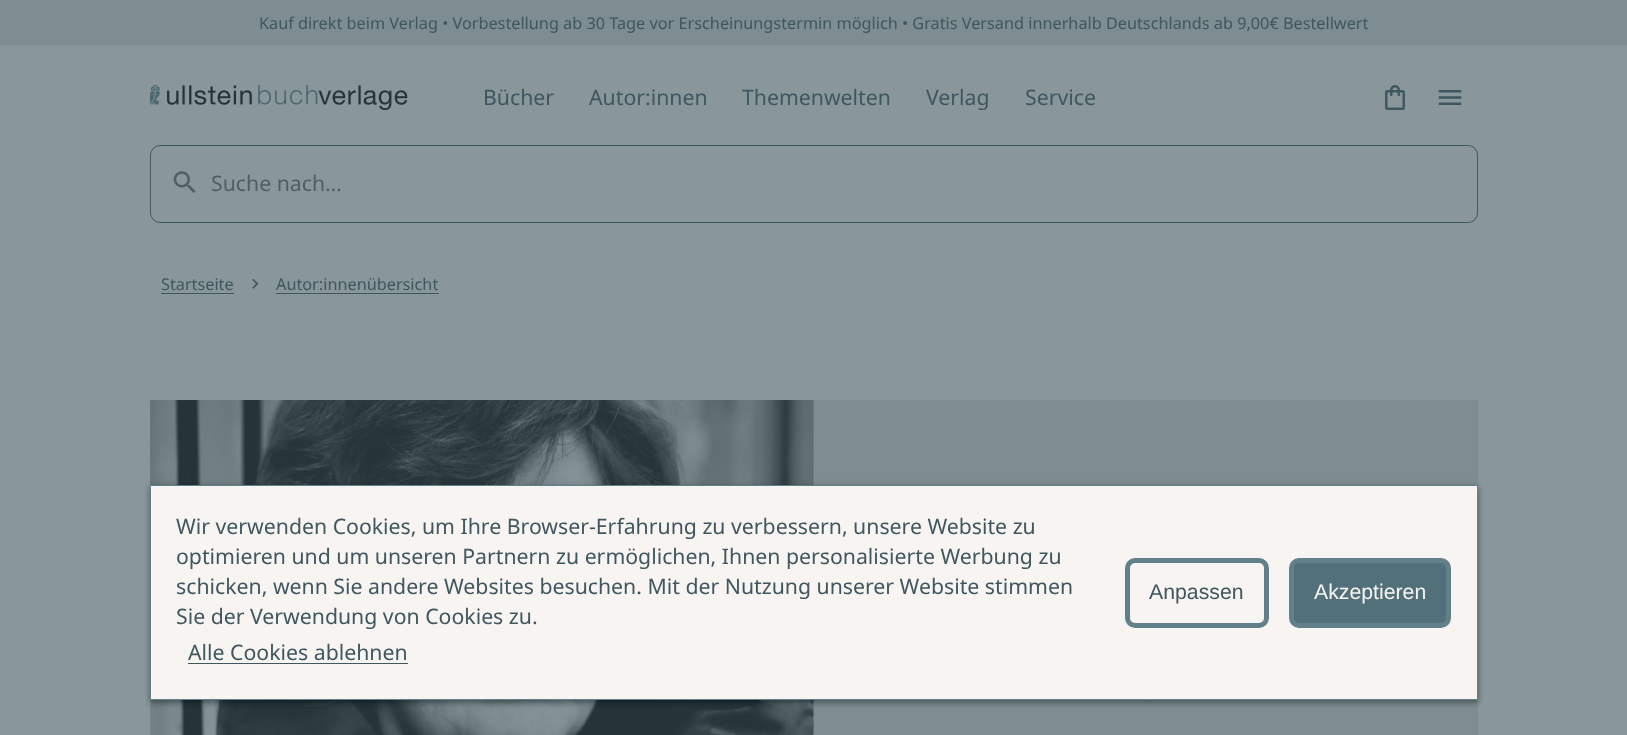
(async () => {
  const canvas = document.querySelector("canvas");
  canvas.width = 1627;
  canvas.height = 735;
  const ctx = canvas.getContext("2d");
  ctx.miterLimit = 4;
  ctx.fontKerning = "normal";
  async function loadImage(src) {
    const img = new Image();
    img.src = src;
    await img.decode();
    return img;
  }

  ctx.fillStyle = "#89969a";
  ctx.fillRect(0, 0, 1627, 735);
  ctx.fillStyle = "#7e8d91";
  ctx.fillRect(0, 0, 1627, 45);
  ctx.drawImage(await loadImage("img/1.png"), 150, 85, 258, 25);
  ctx.drawImage(await loadImage("img/2.png"), 1385, 85, 20, 25);
  ctx.drawImage(await loadImage("img/3.png"), 1438, 90, 24, 15);
  ctx.beginPath();
  ctx.roundRect(150.5, 145.5, 1327, 77, 9.5);
  ctx.strokeStyle = "#3f575f";
  ctx.stroke();
  ctx.drawImage(await loadImage("img/4.png"), 173, 171, 23, 22);
  ctx.fillStyle = "#3f575f";
  ctx.fillRect(161, 293, 73, 1);
  ctx.drawImage(await loadImage("img/5.png"), 252, 278, 7, 11);
  ctx.fillRect(276, 293, 163, 1);
  ctx.fillStyle = "#7e8d91";
  ctx.fillRect(813, 400, 665, 335);
  ctx.drawImage(await loadImage("img/6.png"), 150, 400, 664, 335);
  ctx.fillStyle = "rgba(0, 0, 0, 0.2)";
  ctx.filter = "blur(3px)";
  ctx.beginPath();
  ctx.rect(150, 486, 1328, 215);
  ctx.fill();
  ctx.filter = "none";
  ctx.fillStyle = "rgba(0, 0, 0, 0.12)";
  ctx.filter = "blur(2.5px)";
  ctx.beginPath();
  ctx.rect(150, 489, 1328, 215);
  ctx.fill();
  ctx.filter = "none";
  ctx.fillStyle = "rgba(0, 0, 0, 0.14)";
  ctx.filter = "blur(2.5px)";
  ctx.beginPath();
  ctx.rect(150, 488, 1328, 215);
  ctx.fill();
  ctx.filter = "none";
  ctx.fillStyle = "#f8f4f2";
  ctx.beginPath();
  ctx.rect(150.5, 485.5, 1327, 214);
  ctx.fill();
  ctx.strokeStyle = "#628089";
  ctx.stroke();
  ctx.fillStyle = "#3f575f";
  ctx.fillRect(188, 663, 220, 1);
  ctx.beginPath();
  ctx.roundRect(1127.5, 560.5, 139, 65, 7.5);
  ctx.lineWidth = 5;
  ctx.stroke();
  ctx.fillStyle = "#527079";
  ctx.beginPath();
  ctx.roundRect(1291.5, 560.5, 157, 65, 7.5);
  ctx.fill();
  ctx.stroke();
  ctx.font = "16.25px Noto Sans";
  ctx.fillStyle = "#3f575f";
  ctx.fillText("Kauf direkt beim Verlag • Vorbestellung ab 30 Tage vor Erscheinungstermin möglich • Gratis Versand innerhalb Deutschlands ab 9,00€ Bestellwert", 259, 29);
  ctx.font = "21.25px Noto Sans";
  for (const [text, x, y] of [
    ["Bücher", 483, 105],
    ["Autor:innen", 589, 105],
    ["Themenwelten", 742, 105],
    ["Verlag", 926, 105],
    ["Service", 1025, 105],
  ]) {
    ctx.fillText(text, x, y);
  }
  ctx.fillStyle = "#515f64";
  ctx.fillText("Suche nach…", 211, 191);
  ctx.font = "16.25px Noto Sans";
  ctx.fillStyle = "#3f575f";
  ctx.fillText("Startseite", 161, 290);
  ctx.fillText("Autor:innenübersicht", 276, 290);
  ctx.font = "21.25px Noto Sans";
  for (const [text, x, y] of [
    ["Wir verwenden Cookies, um Ihre Browser-Erfahrung zu verbessern, unsere Website zu", 176, 534],
    ["optimieren und um unseren Partnern zu ermöglichen, Ihnen personalisierte Werbung zu", 176, 564],
    ["schicken, wenn Sie andere Websites besuchen. Mit der Nutzung unserer Website stimmen", 176, 594],
    ["Sie der Verwendung von Cookies zu.", 176, 624],
    ["Alle Cookies ablehnen", 188, 660],
  ]) {
    ctx.fillText(text, x, y);
  }
  ctx.font = "21.25px Liberation Sans";
  ctx.fillText("Anpassen", 1149, 599);
  ctx.fillStyle = "#f8f4f2";
  ctx.fillText("Akzeptieren", 1314, 599);
})();
